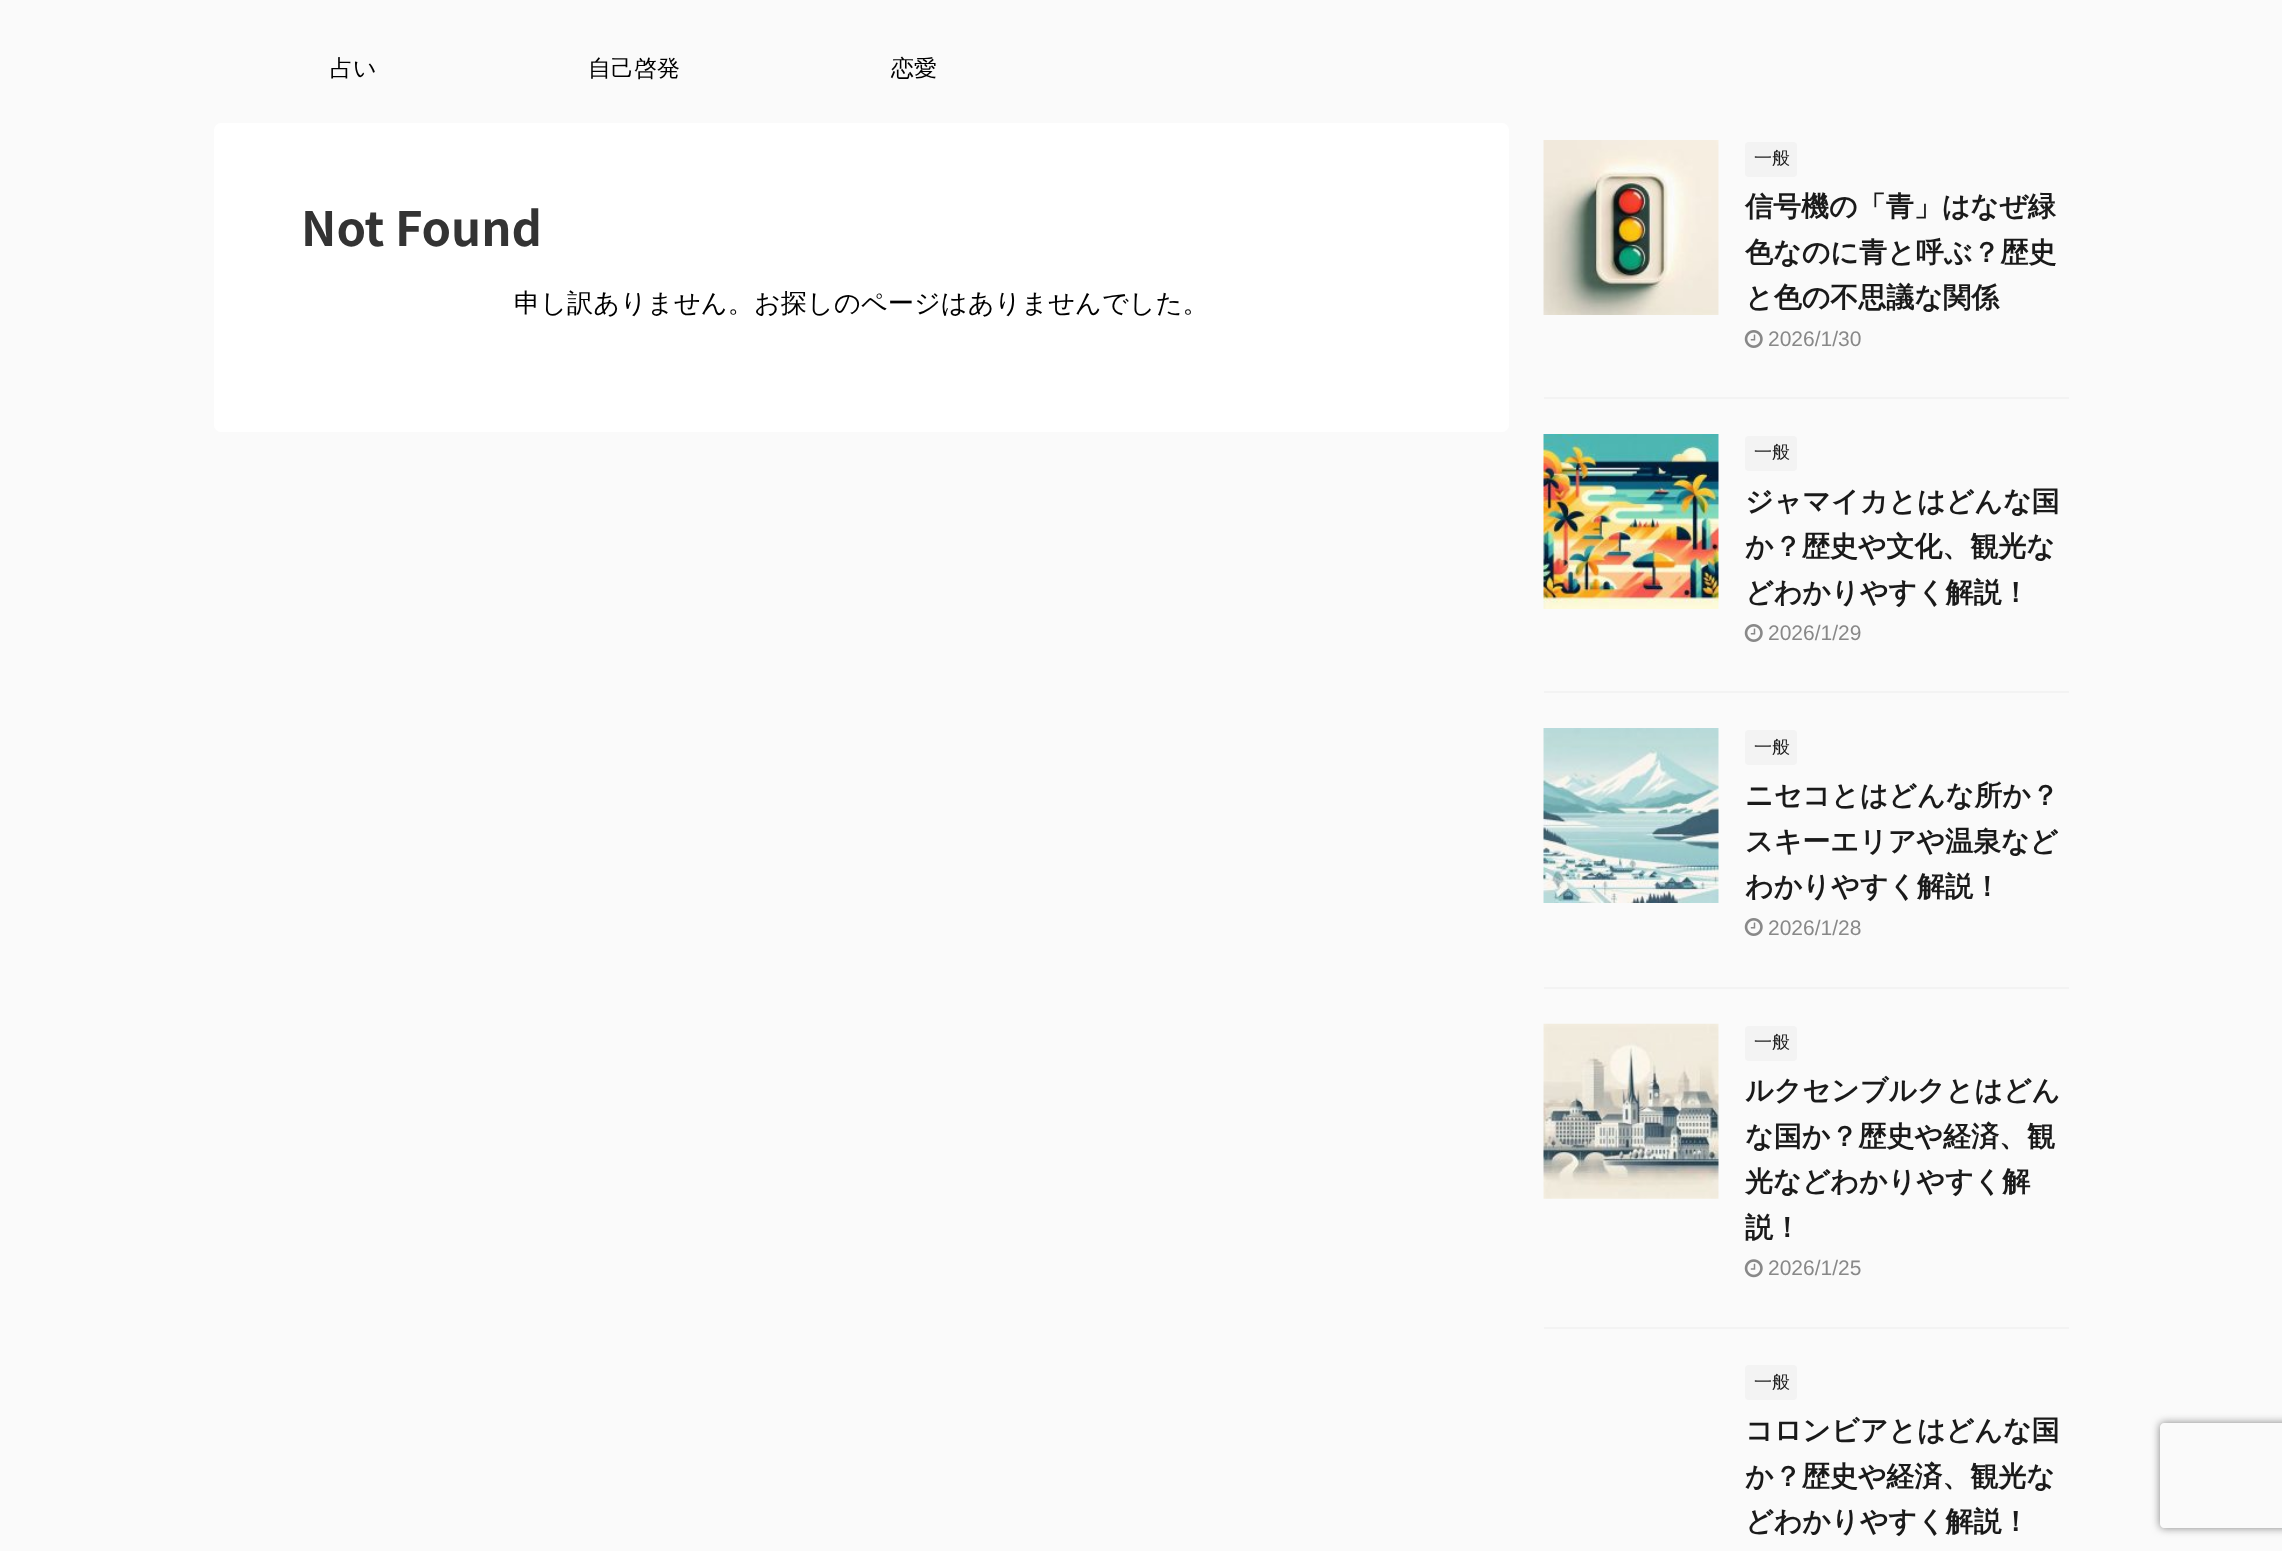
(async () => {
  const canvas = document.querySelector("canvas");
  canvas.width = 2282;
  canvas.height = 1551;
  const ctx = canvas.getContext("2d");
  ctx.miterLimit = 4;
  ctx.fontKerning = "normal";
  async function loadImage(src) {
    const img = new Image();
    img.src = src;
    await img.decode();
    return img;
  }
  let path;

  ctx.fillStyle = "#fafafa";
  ctx.fillRect(0, 0, 2282, 1551);
  ctx.fillStyle = "#ffffff";
  ctx.beginPath();
  ctx.roundRect(214, 123, 1295, 309, 7);
  ctx.fill();
  ctx.fillStyle = "#f3f3f3";
  ctx.fillRect(1544, 397, 525, 2);
  ctx.drawImage(await loadImage("img/1.png"), 1543, 140, 176, 175);
  ctx.beginPath();
  ctx.roundRect(1745, 142, 52, 35, 4);
  ctx.fill();
  ctx.drawImage(await loadImage("img/2.png"), 1744, 330, 19, 18);
  ctx.fillRect(1544, 691, 525, 2);
  ctx.drawImage(await loadImage("img/3.png"), 1543, 434, 176, 175);
  ctx.beginPath();
  ctx.roundRect(1745, 436, 52, 35, 4);
  ctx.fill();
  ctx.drawImage(await loadImage("img/2.png"), 1744, 624, 19, 18);
  ctx.fillRect(1544, 987, 525, 2);
  ctx.drawImage(await loadImage("img/4.png"), 1543, 728, 176, 175);
  ctx.beginPath();
  ctx.roundRect(1745, 730, 52, 35, 4);
  ctx.fill();
  ctx.drawImage(await loadImage("img/2.png"), 1744, 918, 19, 18);
  ctx.fillRect(1544, 1327, 525, 2);
  ctx.drawImage(await loadImage("img/5.png"), 1543, 1023, 176, 176);
  ctx.beginPath();
  ctx.roundRect(1745, 1026, 52, 35, 4);
  ctx.fill();
  ctx.drawImage(await loadImage("img/6.png"), 1744, 1259, 19, 19);
  ctx.beginPath();
  ctx.roundRect(1745, 1365, 52, 35, 4);
  ctx.fill();
  ctx.save();
  path = new Path2D("M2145 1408H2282V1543H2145ZM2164 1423H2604C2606 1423 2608 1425 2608 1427V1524C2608 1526 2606 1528 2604 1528H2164C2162 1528 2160 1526 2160 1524V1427C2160 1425 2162 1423 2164 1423Z");
  ctx.clip(path, "evenodd");
  ctx.fillStyle = "#808080";
  ctx.filter = "blur(4.5px)";
  ctx.beginPath();
  ctx.roundRect(2160, 1423, 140, 105, 4);
  ctx.fill();
  ctx.filter = "none";
  ctx.restore();
  ctx.font = "500 23px WenQuanYi Zen Hei";
  ctx.fillStyle = "#000000";
  for (const [text, x, y] of [
    ["占い", 330, 76],
    ["自己啓発", 588, 76],
    ["恋愛", 891, 76],
  ]) {
    ctx.fillText(text, x, y);
  }
  ctx.font = "bold 47.25px Noto Sans JP";
  ctx.fillStyle = "#333333";
  ctx.fillText("Not Found", 301, 246);
  ctx.font = "500 26.25px WenQuanYi Zen Hei";
  ctx.fillStyle = "#000000";
  ctx.fillText("申し訳ありません。お探しのページはありませんでした。", 514, 312);
  ctx.font = "500 18px WenQuanYi Zen Hei";
  ctx.fillStyle = "#1a1a1a";
  ctx.fillText("一般", 1754, 164);
  ctx.font = "bold 28px WenQuanYi Zen Hei";
  for (const [text, x, y] of [
    ["信号機の「青」はなぜ緑", 1745, 216],
    ["色なのに青と呼ぶ？歴史", 1745, 262],
    ["と色の不思議な関係", 1745, 307],
  ]) {
    ctx.fillText(text, x, y);
  }
  ctx.font = "21px Liberation Sans";
  ctx.fillStyle = "#888888";
  ctx.fillText("2026/1/30", 1768, 346);
  ctx.font = "500 18px WenQuanYi Zen Hei";
  ctx.fillStyle = "#1a1a1a";
  ctx.fillText("一般", 1754, 458);
  ctx.font = "bold 28px WenQuanYi Zen Hei";
  for (const [text, x, y] of [
    ["ジャマイカとはどんな国", 1745, 511],
    ["か？歴史や文化、観光な", 1745, 556],
    ["どわかりやすく解説！", 1745, 602],
  ]) {
    ctx.fillText(text, x, y);
  }
  ctx.font = "21px Liberation Sans";
  ctx.fillStyle = "#888888";
  ctx.fillText("2026/1/29", 1768, 640);
  ctx.font = "500 18px WenQuanYi Zen Hei";
  ctx.fillStyle = "#1a1a1a";
  ctx.fillText("一般", 1754, 753);
  ctx.font = "bold 28px WenQuanYi Zen Hei";
  for (const [text, x, y] of [
    ["ニセコとはどんな所か？", 1745, 805],
    ["スキーエリアや温泉など", 1745, 851],
    ["わかりやすく解説！", 1745, 896],
  ]) {
    ctx.fillText(text, x, y);
  }
  ctx.font = "21px Liberation Sans";
  ctx.fillStyle = "#888888";
  ctx.fillText("2026/1/28", 1768, 935);
  ctx.font = "500 18px WenQuanYi Zen Hei";
  ctx.fillStyle = "#1a1a1a";
  ctx.fillText("一般", 1754, 1048);
  ctx.font = "bold 28px WenQuanYi Zen Hei";
  for (const [text, x, y] of [
    ["ルクセンブルクとはどん", 1745, 1100],
    ["な国か？歴史や経済、観", 1745, 1146],
    ["光などわかりやすく解", 1745, 1191],
    ["説！", 1745, 1237],
  ]) {
    ctx.fillText(text, x, y);
  }
  ctx.font = "21px Liberation Sans";
  ctx.fillStyle = "#888888";
  ctx.fillText("2026/1/25", 1768, 1275);
  ctx.font = "500 18px WenQuanYi Zen Hei";
  ctx.fillStyle = "#1a1a1a";
  ctx.fillText("一般", 1754, 1388);
  ctx.font = "bold 28px WenQuanYi Zen Hei";
  for (const [text, x, y] of [
    ["コロンビアとはどんな国", 1745, 1440],
    ["か？歴史や経済、観光な", 1745, 1486],
    ["どわかりやすく解説！", 1745, 1531],
  ]) {
    ctx.fillText(text, x, y);
  }
})();
